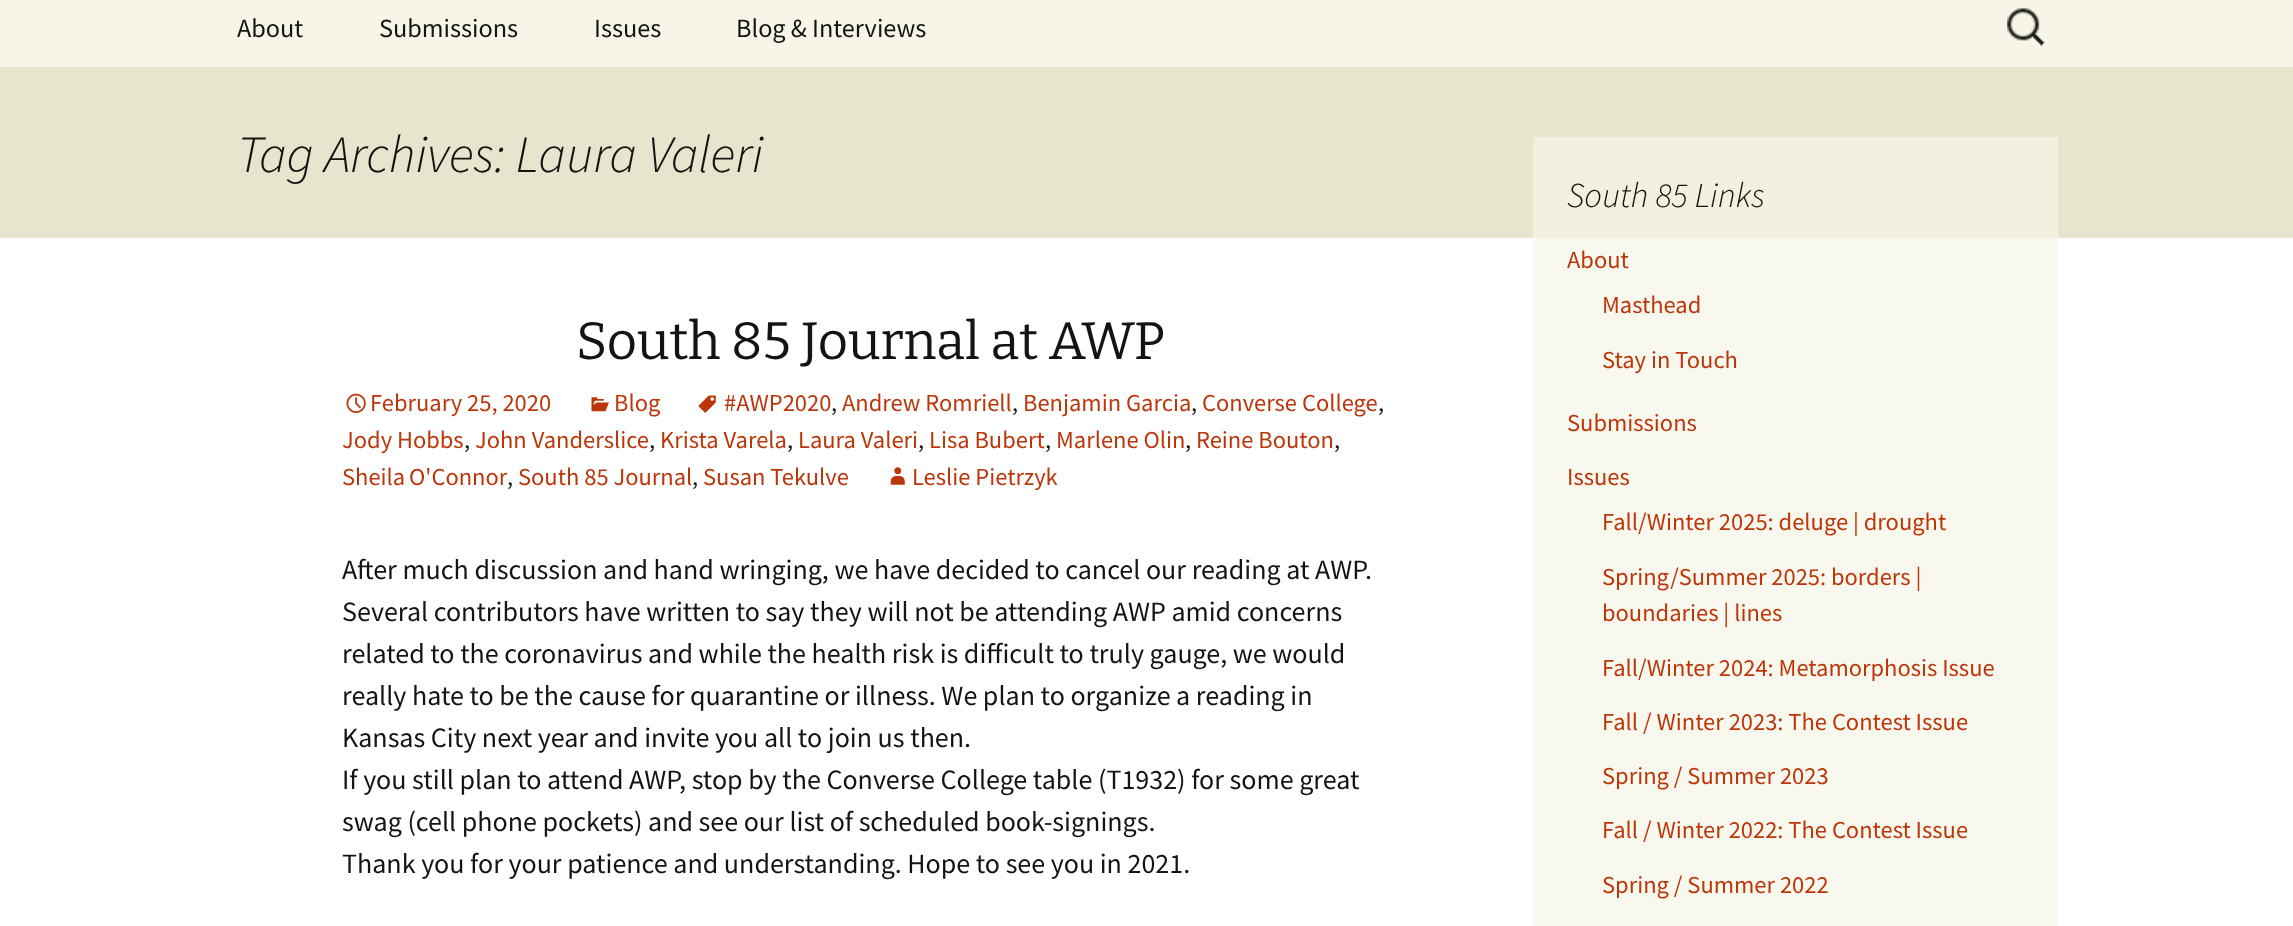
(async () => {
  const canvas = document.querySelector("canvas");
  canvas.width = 2293;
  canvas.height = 926;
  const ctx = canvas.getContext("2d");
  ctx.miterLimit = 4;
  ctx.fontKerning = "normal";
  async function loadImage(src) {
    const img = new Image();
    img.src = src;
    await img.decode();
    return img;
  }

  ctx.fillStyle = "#ffffff";
  ctx.fillRect(0, 0, 2293, 926);
  ctx.fillStyle = "#f9f8ee";
  ctx.fillRect(1533, 238, 525, 688);
  ctx.fillStyle = "#f7f5e7";
  ctx.fillRect(0, 0, 2293, 67);
  ctx.drawImage(await loadImage("img/1.png"), 2007, 8, 38, 38);
  ctx.fillStyle = "#e8e5ce";
  ctx.fillRect(0, 67, 2293, 171);
  ctx.fillStyle = "#f3f0e0";
  ctx.fillRect(1533, 137, 525, 101);
  ctx.drawImage(await loadImage("img/2.png"), 698, 395, 18, 18);
  ctx.drawImage(await loadImage("img/3.png"), 346, 393, 20, 20);
  ctx.drawImage(await loadImage("img/4.png"), 591, 397, 18, 15);
  ctx.drawImage(await loadImage("img/5.png"), 890, 467, 15, 18);
  ctx.font = "26.25px Source Sans Pro";
  ctx.fillStyle = "#141412";
  for (const [text, x, y] of [
    ["About", 237, 37],
    ["Submissions", 379, 37],
    ["Issues", 594, 37],
    ["Blog & Interviews", 736, 37],
  ]) {
    ctx.fillText(text, x, y);
  }
  ctx.font = "italic 300 52.5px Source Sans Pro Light";
  ctx.fillText("Tag Archives: Laura Valeri", 237, 172);
  ctx.font = "100 52.5px Bitter";
  ctx.fillText("South 85 Journal at AWP", 576, 359);
  ctx.font = "24.5px Source Sans Pro";
  ctx.fillStyle = "#bc360a";
  ctx.fillText("#AWP2020", 724, 411);
  ctx.fillStyle = "#141412";
  ctx.fillText(",", 831, 411);
  ctx.fillStyle = "#bc360a";
  ctx.fillText("Andrew Romriell", 842, 411);
  ctx.fillStyle = "#141412";
  ctx.fillText(",", 1012, 411);
  ctx.fillStyle = "#bc360a";
  ctx.fillText("Benjamin Garcia", 1023, 411);
  ctx.fillStyle = "#141412";
  ctx.fillText(",", 1191, 411);
  ctx.fillStyle = "#bc360a";
  ctx.fillText("Converse College", 1202, 411);
  ctx.fillStyle = "#141412";
  ctx.fillText(",", 1378, 411);
  ctx.fillStyle = "#bc360a";
  ctx.fillText("Jody Hobbs", 342, 448);
  ctx.fillStyle = "#141412";
  ctx.fillText(",", 464, 448);
  ctx.fillStyle = "#bc360a";
  ctx.fillText("John Vanderslice", 475, 448);
  ctx.fillStyle = "#141412";
  ctx.fillText(",", 649, 448);
  ctx.fillStyle = "#bc360a";
  ctx.fillText("Krista Varela", 660, 448);
  ctx.fillStyle = "#141412";
  ctx.fillText(",", 787, 448);
  ctx.fillStyle = "#bc360a";
  ctx.fillText("Laura Valeri", 798, 448);
  ctx.fillStyle = "#141412";
  ctx.fillText(",", 918, 448);
  ctx.fillStyle = "#bc360a";
  ctx.fillText("Lisa Bubert", 929, 448);
  ctx.fillStyle = "#141412";
  ctx.fillText(",", 1045, 448);
  ctx.fillStyle = "#bc360a";
  ctx.fillText("Marlene Olin", 1056, 448);
  ctx.fillStyle = "#141412";
  ctx.fillText(",", 1185, 448);
  ctx.fillStyle = "#bc360a";
  ctx.fillText("Reine Bouton", 1196, 448);
  ctx.fillStyle = "#141412";
  ctx.fillText(",", 1334, 448);
  ctx.wordSpacing = "-1px";
  ctx.fillStyle = "#bc360a";
  ctx.fillText("Sheila O'Connor", 342, 485);
  ctx.wordSpacing = "0px";
  ctx.fillStyle = "#141412";
  ctx.fillText(",", 507, 485);
  ctx.fillStyle = "#bc360a";
  ctx.fillText("South 85 Journal", 518, 485);
  ctx.fillStyle = "#141412";
  ctx.fillText(",", 692, 485);
  ctx.fillStyle = "#bc360a";
  for (const [text, x, y] of [
    ["Susan Tekulve", 703, 485],
    ["February 25, 2020", 370, 411],
    ["Blog", 614, 411],
    ["Leslie Pietrzyk", 912, 485],
  ]) {
    ctx.fillText(text, x, y);
  }
  ctx.font = "28px Source Sans Pro";
  ctx.fillStyle = "#141412";
  for (const [text, x, y] of [
    ["After much discussion and hand wringing, we have decided to cancel our reading at AWP.", 342, 579],
    ["Several contributors have written to say they will not be attending AWP amid concerns", 342, 621],
    ["related to the coronavirus and while the health risk is difficult to truly gauge, we would", 342, 663],
    ["really hate to be the cause for quarantine or illness. We plan to organize a reading in", 342, 705],
    ["Kansas City next year and invite you all to join us then.", 342, 747],
    ["If you still plan to attend AWP, stop by the Converse College table (T1932) for some great", 342, 789],
    ["swag (cell phone pockets) and see our list of scheduled book-signings.", 342, 831],
    ["Thank you for your patience and understanding. Hope to see you in 2021.", 342, 873],
  ]) {
    ctx.fillText(text, x, y);
  }
  ctx.font = "italic 300 35px Source Sans Pro Light";
  ctx.fillText("South 85 Links", 1567, 207);
  ctx.font = "24.5px Source Sans Pro";
  ctx.fillStyle = "#bc360a";
  for (const [text, x, y] of [
    ["About", 1567, 268],
    ["Masthead", 1602, 313],
    ["Stay in Touch", 1602, 368],
    ["Submissions", 1567, 431],
    ["Issues", 1567, 485],
    ["Fall/Winter 2025: deluge | drought", 1602, 530],
    ["Spring/Summer 2025: borders |", 1602, 585],
    ["boundaries | lines", 1602, 621],
    ["Fall/Winter 2024: Metamorphosis Issue", 1602, 676],
    ["Fall / Winter 2023: The Contest Issue", 1602, 730],
    ["Spring / Summer 2023", 1602, 784],
    ["Fall / Winter 2022: The Contest Issue", 1602, 838],
    ["Spring / Summer 2022", 1602, 893],
  ]) {
    ctx.fillText(text, x, y);
  }
})();
